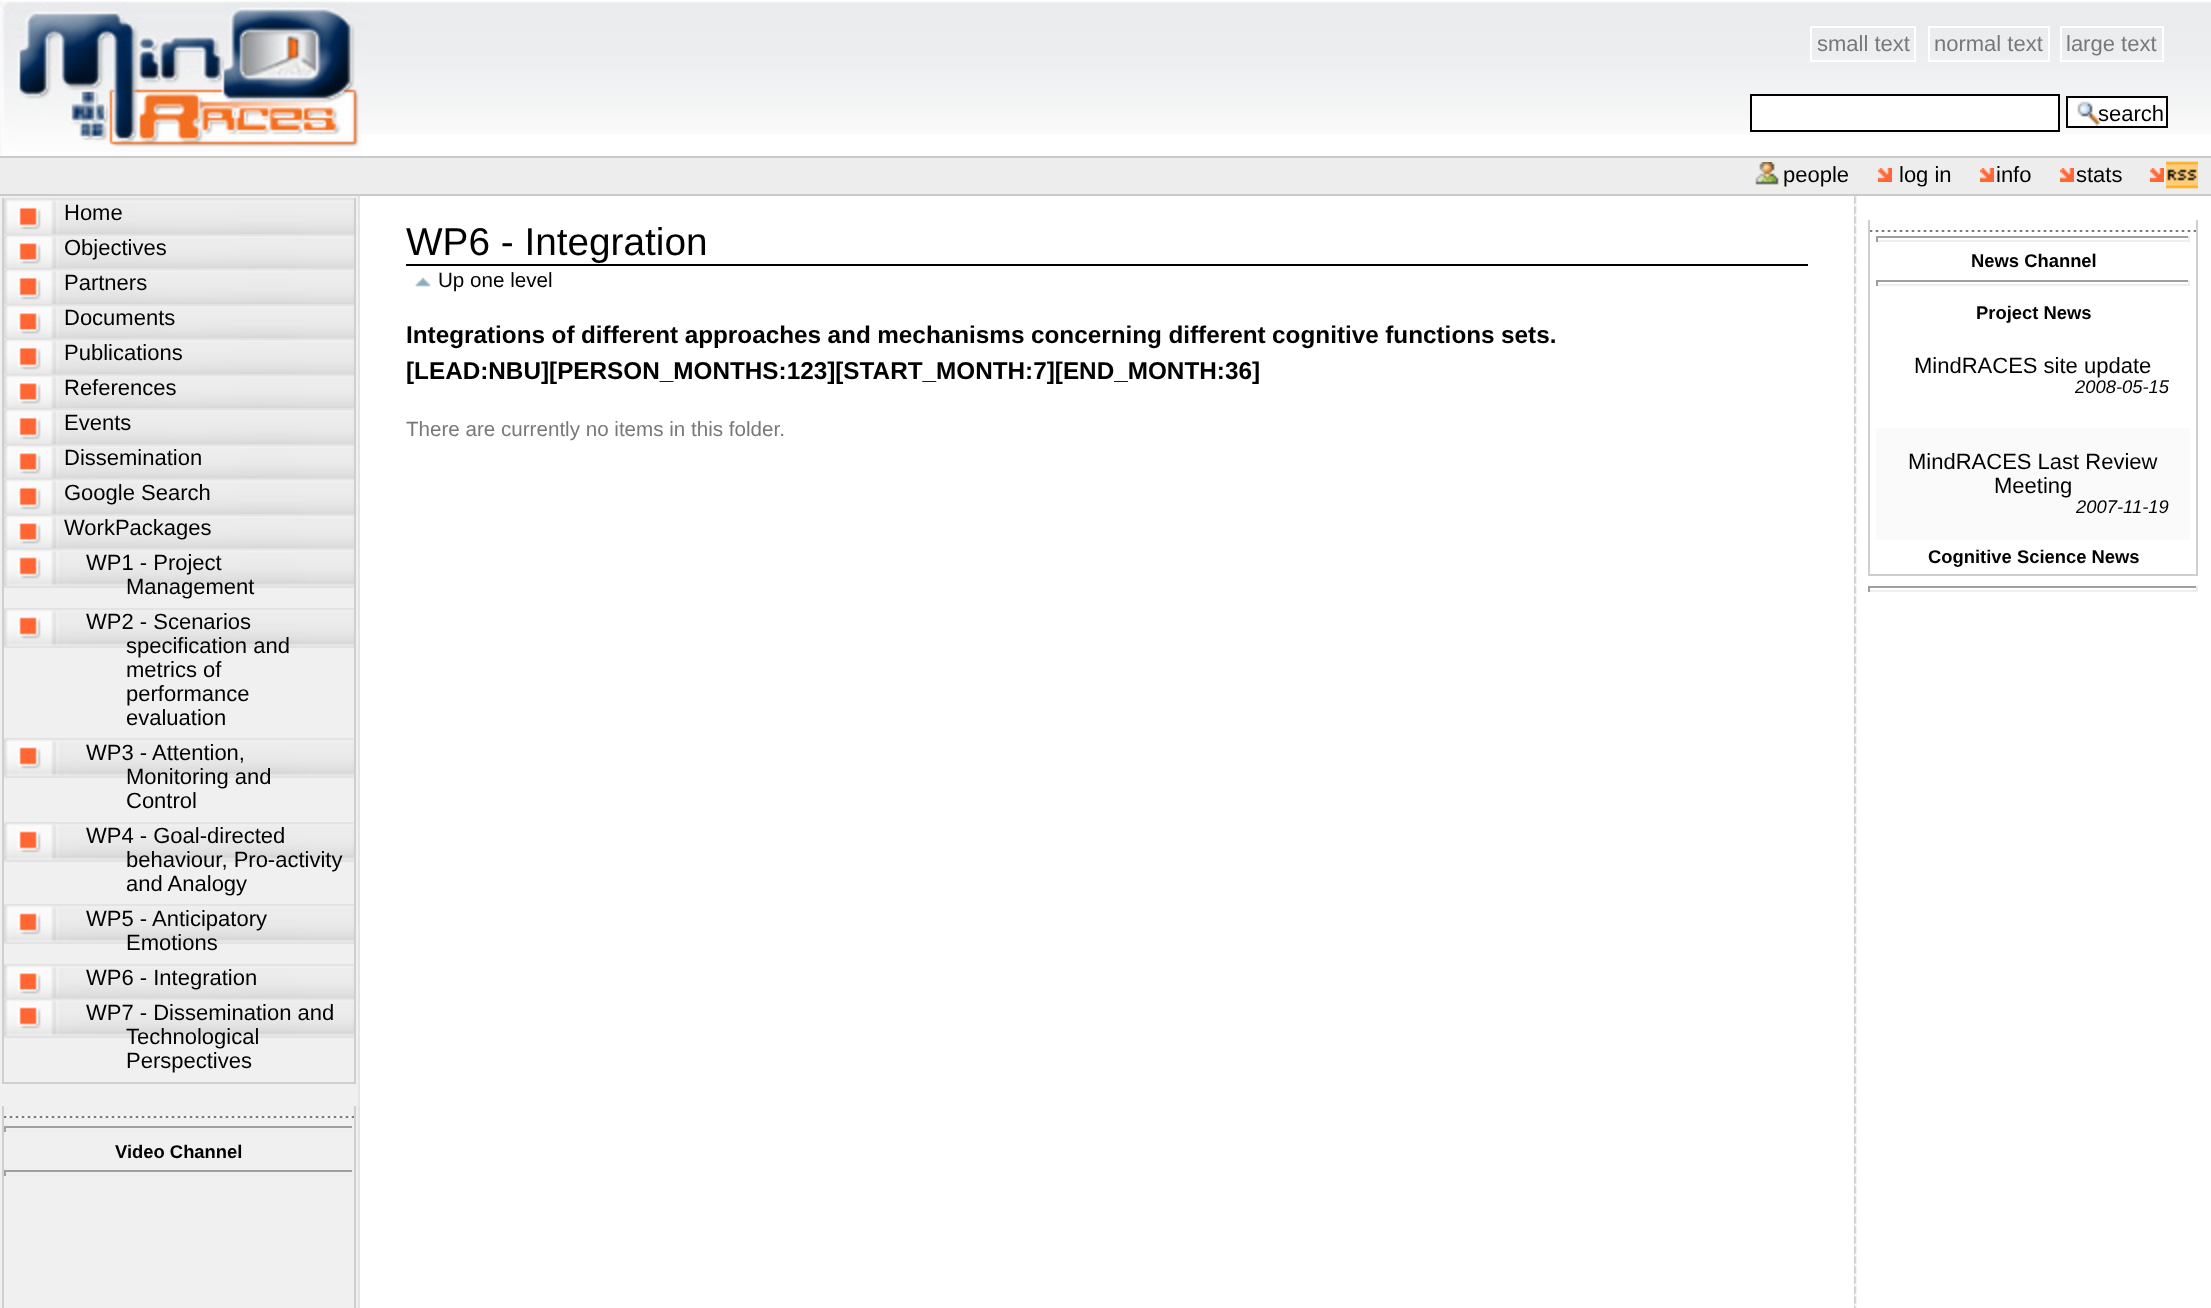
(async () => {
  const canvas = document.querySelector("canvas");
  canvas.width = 2211;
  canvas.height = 1308;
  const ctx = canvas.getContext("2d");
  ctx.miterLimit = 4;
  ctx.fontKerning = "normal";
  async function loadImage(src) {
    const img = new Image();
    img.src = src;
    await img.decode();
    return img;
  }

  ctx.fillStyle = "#ffffff";
  ctx.fillRect(0, 0, 2211, 1308);
  ctx.drawImage(await loadImage("img/1.png"), 362, 1, 1849, 133);
  ctx.drawImage(await loadImage("img/2.png"), 0, 0, 362, 156);
  ctx.strokeStyle = "#ffffff";
  ctx.lineWidth = 2;
  ctx.strokeRect(1811, 27, 104, 34);
  ctx.strokeRect(1929, 27, 120, 34);
  ctx.strokeRect(2061, 27, 102, 34);
  ctx.beginPath();
  ctx.rect(1751, 95, 308, 36);
  ctx.fill();
  ctx.strokeStyle = "#000000";
  ctx.stroke();
  ctx.fillRect(2068, 98, 98, 28);
  ctx.drawImage(await loadImage("img/3.png"), 2077, 101, 24, 25);
  ctx.strokeRect(2067, 97, 100, 30);
  for (const [x, y, w, h, color] of [
    [0, 158, 2211, 36, "#ededed"],
    [0, 156, 2211, 2, "#c9caca"],
    [0, 194, 2211, 2, "#c9caca"],
  ]) {
    ctx.fillStyle = color;
    ctx.fillRect(x, y, w, h);
  }
  ctx.drawImage(await loadImage("img/4.png"), 1755, 162, 24, 23);
  ctx.drawImage(await loadImage("img/5.png"), 1878, 168, 14, 14);
  ctx.drawImage(await loadImage("img/5.png"), 1980, 168, 14, 14);
  ctx.drawImage(await loadImage("img/5.png"), 2060, 168, 14, 14);
  ctx.drawImage(await loadImage("img/5.png"), 2150, 168, 14, 14);
  ctx.drawImage(await loadImage("img/6.png"), 2166, 161, 32, 28);
  for (const [x, y, w, h, color] of [
    [0, 196, 358, 1112, "#f1f0f0"],
    [358, 196, 2, 1112, "#e4e4e4"],
    [354, 198, 2, 886, "#cfcfcf"],
    [2, 1082, 354, 2, "#cfcfcf"],
    [2, 198, 2, 886, "#cfcfcf"],
  ]) {
    ctx.fillStyle = color;
    ctx.fillRect(x, y, w, h);
  }
  ctx.drawImage(await loadImage("img/7.png"), 4, 198, 350, 36);
  ctx.drawImage(await loadImage("img/8.png"), 4, 234, 350, 34);
  ctx.drawImage(await loadImage("img/9.png"), 4, 268, 350, 36);
  ctx.drawImage(await loadImage("img/8.png"), 4, 304, 350, 34);
  ctx.drawImage(await loadImage("img/10.png"), 4, 338, 350, 36);
  ctx.drawImage(await loadImage("img/8.png"), 4, 374, 350, 34);
  ctx.drawImage(await loadImage("img/7.png"), 4, 408, 350, 36);
  ctx.drawImage(await loadImage("img/8.png"), 4, 444, 350, 34);
  ctx.drawImage(await loadImage("img/11.png"), 4, 478, 350, 36);
  ctx.drawImage(await loadImage("img/8.png"), 4, 514, 350, 34);
  ctx.drawImage(await loadImage("img/12.png"), 4, 548, 350, 40);
  ctx.drawImage(await loadImage("img/12.png"), 4, 608, 350, 40);
  ctx.drawImage(await loadImage("img/12.png"), 4, 738, 350, 40);
  ctx.drawImage(await loadImage("img/12.png"), 4, 822, 350, 40);
  ctx.drawImage(await loadImage("img/12.png"), 4, 904, 350, 40);
  ctx.drawImage(await loadImage("img/8.png"), 4, 964, 350, 34);
  ctx.drawImage(await loadImage("img/12.png"), 4, 998, 350, 40);
  ctx.drawImage(await loadImage("img/13.png"), 4, 1116, 350, 2);
  for (const [x, y, w, h, color] of [
    [354, 1106, 2, 202, "#cfcfcf"],
    [2, 1106, 2, 202, "#cfcfcf"],
    [4, 1126, 350, 2, "#9f9f9f"],
    [352, 1126, 2, 6, "#eeeeee"],
    [4, 1130, 350, 2, "#eeeeee"],
    [4, 1126, 2, 6, "#9f9f9f"],
    [4, 1170, 350, 2, "#9f9f9f"],
    [352, 1170, 2, 6, "#eeeeee"],
    [4, 1174, 350, 2, "#eeeeee"],
    [4, 1170, 2, 6, "#9f9f9f"],
    [406, 264, 1402, 2, "#000000"],
  ]) {
    ctx.fillStyle = color;
    ctx.fillRect(x, y, w, h);
  }
  ctx.drawImage(await loadImage("img/14.png"), 415, 277, 16, 10);
  ctx.drawImage(await loadImage("img/15.png"), 1854, 196, 3, 1112);
  ctx.drawImage(await loadImage("img/16.png"), 1870, 230, 326, 2);
  for (const [x, y, w, h, color] of [
    [2196, 220, 2, 356, "#cfcfcf"],
    [1868, 574, 330, 2, "#cfcfcf"],
    [1868, 220, 2, 356, "#cfcfcf"],
    [1876, 236, 314, 2, "#9f9f9f"],
    [2188, 236, 2, 6, "#eeeeee"],
    [1876, 240, 314, 2, "#eeeeee"],
    [1876, 236, 2, 6, "#9f9f9f"],
    [1876, 280, 314, 2, "#9f9f9f"],
    [2188, 280, 2, 6, "#eeeeee"],
    [1876, 284, 314, 2, "#eeeeee"],
    [1876, 280, 2, 6, "#9f9f9f"],
    [1876, 428, 314, 112, "#fafafa"],
    [1868, 586, 330, 2, "#9f9f9f"],
    [2196, 586, 2, 6, "#eeeeee"],
    [1868, 590, 330, 2, "#eeeeee"],
    [1868, 586, 2, 6, "#9f9f9f"],
  ]) {
    ctx.fillStyle = color;
    ctx.fillRect(x, y, w, h);
  }
  ctx.font = "22px Liberation Sans";
  ctx.fillStyle = "#76797c";
  for (const [text, x, y] of [
    ["small text", 1817, 51],
    ["normal text", 1934, 51],
    ["large text", 2066, 51],
  ]) {
    ctx.fillText(text, x, y);
  }
  ctx.fillStyle = "#000000";
  for (const [text, x, y] of [
    ["search", 2098, 121],
    ["people", 1783, 182],
    ["log in", 1899, 182],
    ["info", 1996, 182],
    ["stats", 2076, 182],
    ["Home", 64, 220],
    ["Objectives", 64, 255],
    ["Partners", 64, 290],
    ["Documents", 64, 325],
    ["Publications", 64, 360],
    ["References", 64, 395],
    ["Events", 64, 430],
    ["Dissemination", 64, 465],
    ["Google Search", 64, 500],
    ["WorkPackages", 64, 535],
    ["WP1 - Project", 86, 570],
    ["Management", 126, 594],
    ["WP2 - Scenarios", 86, 629],
    ["specification and", 126, 653],
    ["metrics of", 126, 677],
    ["performance", 126, 701],
    ["evaluation", 126, 725],
    ["WP3 - Attention,", 86, 760],
    ["Monitoring and", 126, 784],
    ["Control", 126, 808],
    ["WP4 - Goal-directed", 86, 843],
    ["behaviour, Pro-activity", 126, 867],
    ["and Analogy", 126, 891],
    ["WP5 - Anticipatory", 86, 926],
    ["Emotions", 126, 950],
    ["WP6 - Integration", 86, 985],
    ["WP7 - Dissemination and", 86, 1020],
    ["Technological", 126, 1044],
    ["Perspectives", 126, 1068],
  ]) {
    ctx.fillText(text, x, y);
  }
  ctx.font = "bold 18.4px Liberation Sans";
  ctx.fillText("Video Channel", 115, 1158);
  ctx.font = "38.75px Liberation Sans";
  ctx.fillText("WP6 - Integration", 406, 255);
  ctx.font = "20.6px Liberation Sans";
  ctx.fillText("Up one level", 438, 287);
  ctx.wordSpacing = "-0.25px";
  ctx.font = "bold 24.3px Liberation Sans";
  ctx.fillText("Integrations of different approaches and mechanisms concerning different cognitive functions sets.", 406, 343);
  ctx.wordSpacing = "0px";
  ctx.fillText("[LEAD:NBU][PERSON_MONTHS:123][START_MONTH:7][END_MONTH:36]", 406, 379);
  ctx.font = "20.6px Liberation Sans";
  ctx.fillStyle = "#76797c";
  ctx.fillText("There are currently no items in this folder.", 406, 436);
  ctx.font = "bold 18.4px Liberation Sans";
  ctx.fillStyle = "#000000";
  ctx.fillText("News Channel", 1971, 267);
  ctx.fillText("Project News", 1976, 319);
  ctx.font = "22px Liberation Sans";
  ctx.fillText("MindRACES site update", 1914, 373);
  ctx.font = "italic 18.4px Liberation Sans";
  ctx.fillText("2008-05-15", 2075, 393);
  ctx.font = "22px Liberation Sans";
  ctx.fillText("MindRACES Last Review", 1908, 469);
  ctx.fillText("Meeting", 1994, 493);
  ctx.font = "italic 18.4px Liberation Sans";
  ctx.fillText("2007-11-19", 2076, 513);
  ctx.font = "bold 18.4px Liberation Sans";
  ctx.fillText("Cognitive Science News", 1928, 563);
})();
